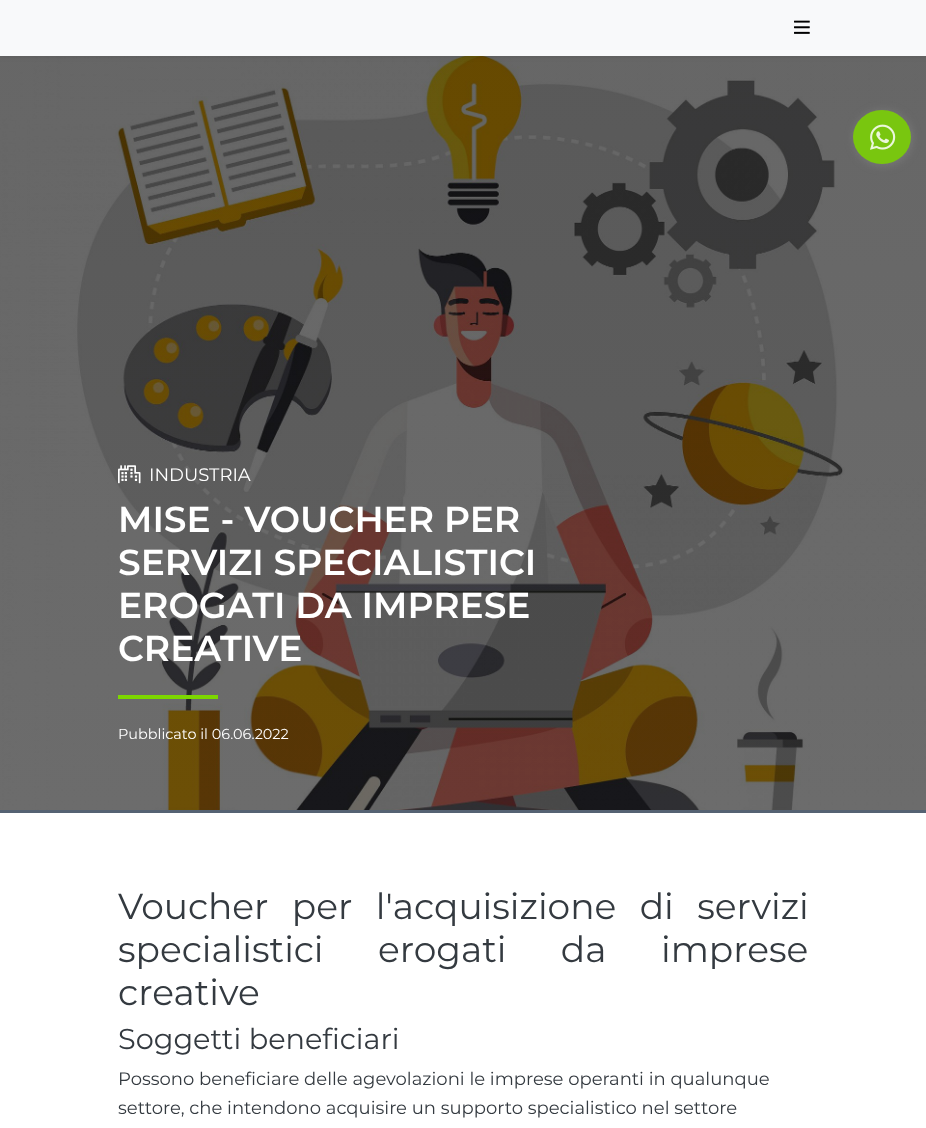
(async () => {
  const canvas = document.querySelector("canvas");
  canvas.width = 926;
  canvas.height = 1128;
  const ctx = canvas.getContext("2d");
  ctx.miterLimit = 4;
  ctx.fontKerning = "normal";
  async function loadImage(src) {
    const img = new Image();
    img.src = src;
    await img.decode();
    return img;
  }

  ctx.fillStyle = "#ffffff";
  ctx.fillRect(0, 0, 926, 1128);
  ctx.drawImage(await loadImage("img/3.png"), 0, 56, 926, 754);
  ctx.fillStyle = "rgba(0, 0, 0, 0.07)";
  ctx.filter = "blur(2px)";
  ctx.beginPath();
  ctx.rect(0, 2, 926, 56);
  ctx.fill();
  ctx.filter = "none";
  ctx.fillStyle = "#f8f9fa";
  ctx.fillRect(0, 0, 926, 56);
  ctx.drawImage(await loadImage("img/1.png"), 794, 20, 16, 14);
  ctx.fillStyle = "rgba(156, 156, 156, 0.34)";
  ctx.filter = "blur(5px)";
  ctx.beginPath();
  ctx.roundRect(854, 111, 58, 54, 27);
  ctx.fill();
  ctx.filter = "none";
  ctx.fillStyle = "#79c60f";
  ctx.beginPath();
  ctx.ellipse(882, 137, 29, 27, 0, 0, Math.PI * 2);
  ctx.fill();
  ctx.drawImage(await loadImage("img/2.png"), 870, 124, 26, 26);
  ctx.fillStyle = "#556273";
  ctx.fillRect(0, 810, 926, 3);
  ctx.drawImage(await loadImage("img/4.png"), 118, 465, 23, 19);
  ctx.fillStyle = "#7cd700";
  ctx.fillRect(118, 695, 100, 4);
  ctx.font = "18px Montserrat";
  ctx.fillStyle = "#ffffff";
  ctx.fillText("INDUSTRIA", 149, 481);
  ctx.font = "600 36px Montserrat";
  for (const [text, x, y] of [
    ["MISE - VOUCHER PER", 118, 532],
    ["SERVIZI SPECIALISTICI", 118, 575],
    ["EROGATI DA IMPRESE", 118, 618],
    ["CREATIVE", 118, 661],
  ]) {
    ctx.fillText(text, x, y);
  }
  ctx.font = "14.4px Montserrat";
  ctx.fillText("Pubblicato il 06.06.2022", 118, 739);
  ctx.wordSpacing = "14px";
  ctx.font = "36px Montserrat";
  ctx.fillStyle = "#343a40";
  ctx.fillText("Voucher per l'acquisizione di servizi", 118, 919);
  ctx.wordSpacing = "45px";
  ctx.fillText("specialistici erogati da imprese", 118, 962);
  ctx.wordSpacing = "0px";
  ctx.fillText("creative", 118, 1005);
  ctx.font = "28.75px Montserrat";
  ctx.fillText("Soggetti beneficiari", 118, 1049);
  ctx.font = "18px Montserrat";
  ctx.fillText("Possono beneficiare delle agevolazioni le imprese operanti in qualunque", 118, 1085);
  ctx.fillText("settore, che intendono acquisire un supporto specialistico nel settore", 118, 1114);
})();
